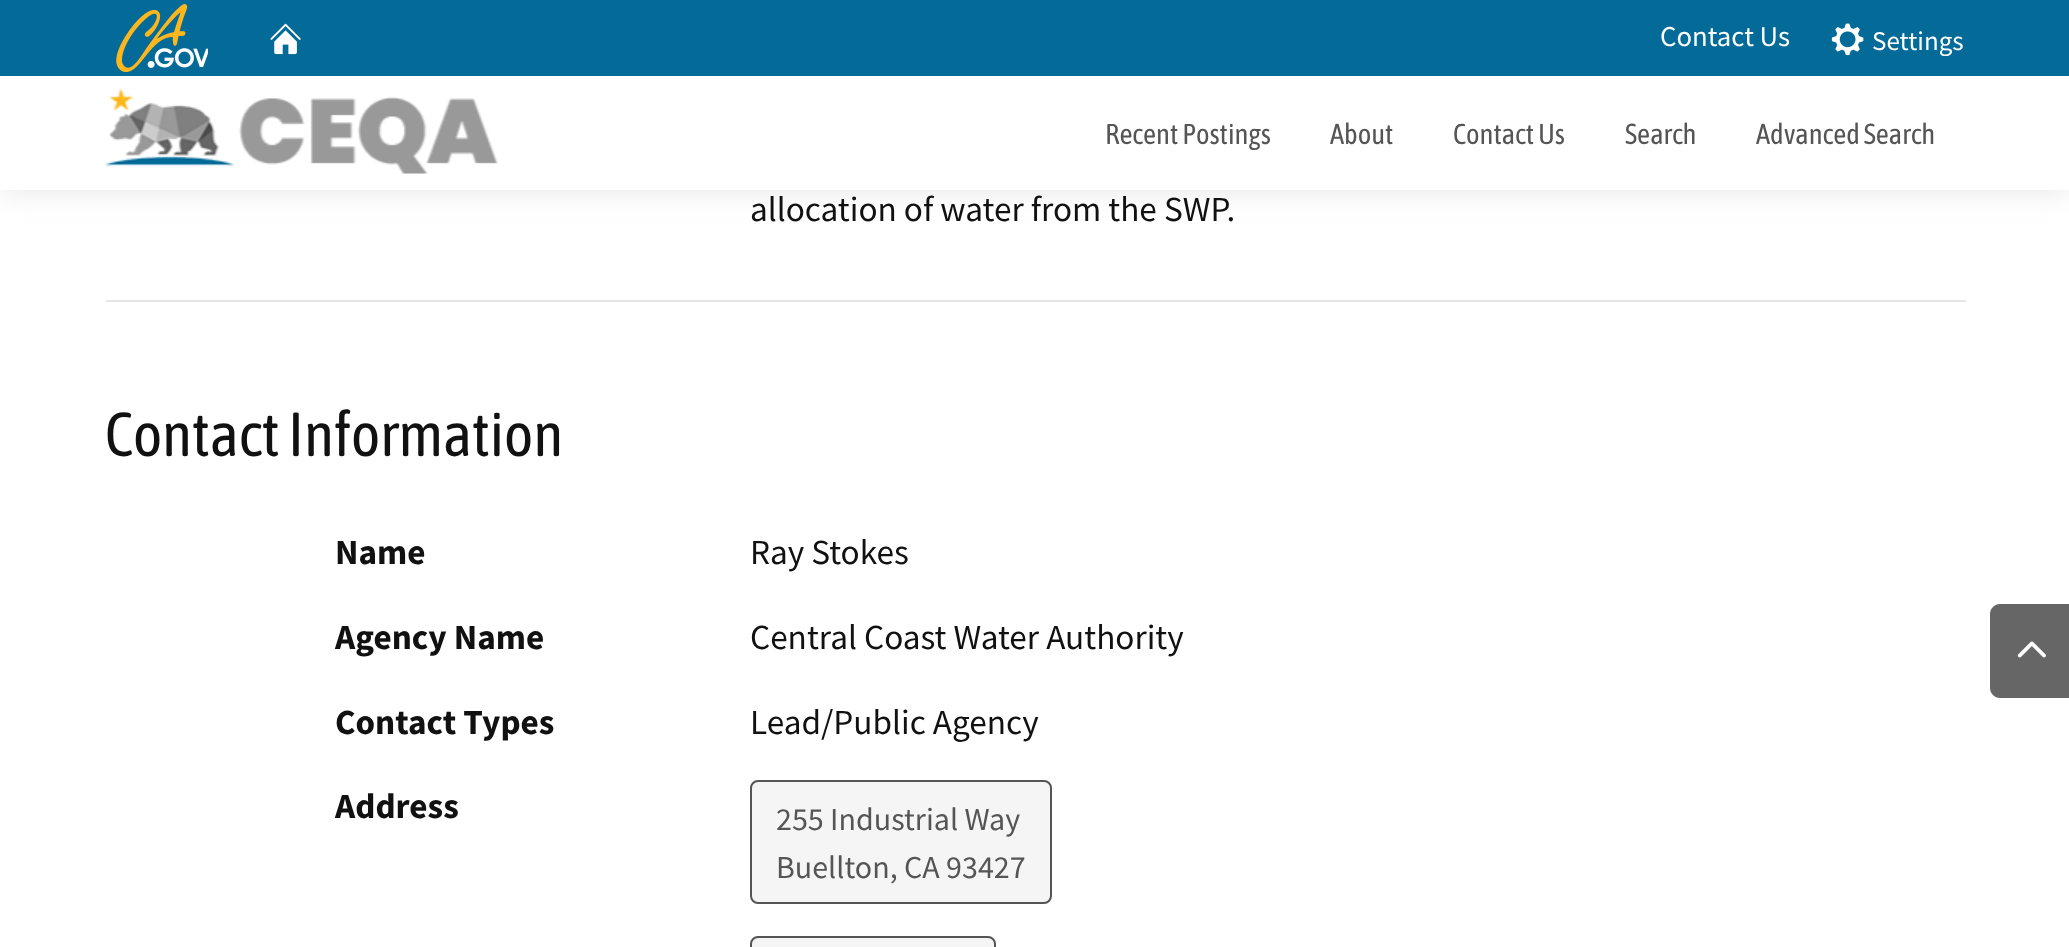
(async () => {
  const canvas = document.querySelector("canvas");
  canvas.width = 2069;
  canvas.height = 947;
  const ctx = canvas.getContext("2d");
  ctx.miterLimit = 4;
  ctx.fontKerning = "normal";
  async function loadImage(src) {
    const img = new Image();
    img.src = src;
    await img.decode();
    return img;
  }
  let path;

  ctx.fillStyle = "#ffffff";
  ctx.fillRect(0, 0, 2069, 947);
  ctx.fillStyle = "rgba(189, 189, 189, 0.4)";
  ctx.filter = "blur(15px)";
  ctx.beginPath();
  ctx.rect(0, 0, 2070, 190);
  ctx.fill();
  ctx.filter = "none";
  ctx.fillStyle = "#ffffff";
  ctx.fillRect(0, 76, 2069, 114);
  ctx.fillStyle = "#046b99";
  ctx.fillRect(0, 0, 2069, 76);
  ctx.drawImage(await loadImage("img/1.png"), 116, 4, 92, 68);
  ctx.drawImage(await loadImage("img/2.png"), 270, 23, 31, 32);
  ctx.drawImage(await loadImage("img/3.png"), 1831, 23, 33, 33);
  ctx.drawImage(await loadImage("img/4.png"), 105, 88, 394, 86);
  ctx.fillStyle = "#e6e6e6";
  ctx.fillRect(106, 300, 1860, 2);
  ctx.fillStyle = "#f5f5f5";
  ctx.beginPath();
  ctx.roundRect(751, 781, 300, 122, 7);
  ctx.fill();
  ctx.strokeStyle = "#555555";
  ctx.lineWidth = 2;
  ctx.stroke();
  ctx.beginPath();
  ctx.roundRect(751, 937, 244, 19, 7);
  ctx.fill();
  ctx.stroke();
  ctx.fillStyle = "#666666";
  path = new Path2D("M2000 604H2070V698H2000C1994.5 698 1990 693.5 1990 688V614C1990 608.5 1994.5 604 2000 604Z");
  ctx.fill(path);
  ctx.drawImage(await loadImage("img/5.png"), 2017, 641, 29, 17);
  ctx.font = "28.75px Source Sans Pro";
  ctx.fillStyle = "#ffffff";
  ctx.fillText("Contact Us", 1660, 46);
  ctx.font = "27px Source Sans Pro";
  ctx.fillText("Settings", 1872, 50);
  ctx.font = "28.75px Asap Condensed";
  ctx.fillStyle = "#555555";
  for (const [text, x, y] of [
    ["Recent Postings", 1105, 144],
    ["About", 1330, 144],
    ["Contact Us", 1453, 144],
    ["Search", 1625, 144],
    ["Advanced Search", 1756, 144],
  ]) {
    ctx.fillText(text, x, y);
  }
  ctx.font = "35.25px Source Sans Pro";
  ctx.fillStyle = "#111111";
  ctx.fillText("allocation of water from the SWP.", 750, 221);
  ctx.font = "62px Asap Condensed";
  ctx.fillText("Contact Information", 105, 456);
  ctx.font = "bold 35.25px Source Sans Pro";
  ctx.fillText("Name", 335, 564);
  ctx.font = "35.25px Source Sans Pro";
  ctx.fillText("Ray Stokes", 750, 564);
  ctx.font = "bold 35.25px Source Sans Pro";
  ctx.fillText("Agency Name", 335, 649);
  ctx.font = "35.25px Source Sans Pro";
  ctx.fillText("Central Coast Water Authority", 750, 649);
  ctx.font = "bold 35.25px Source Sans Pro";
  ctx.fillText("Contact Types", 335, 734);
  ctx.font = "35.25px Source Sans Pro";
  ctx.fillText("Lead/Public Agency", 750, 734);
  ctx.font = "bold 35.25px Source Sans Pro";
  ctx.fillText("Address", 335, 818);
  ctx.font = "32px Source Sans Pro";
  ctx.fillStyle = "#555555";
  ctx.fillText("255 Industrial Way", 776, 830);
  ctx.fillText("Buellton, CA 93427", 776, 878);
})();
